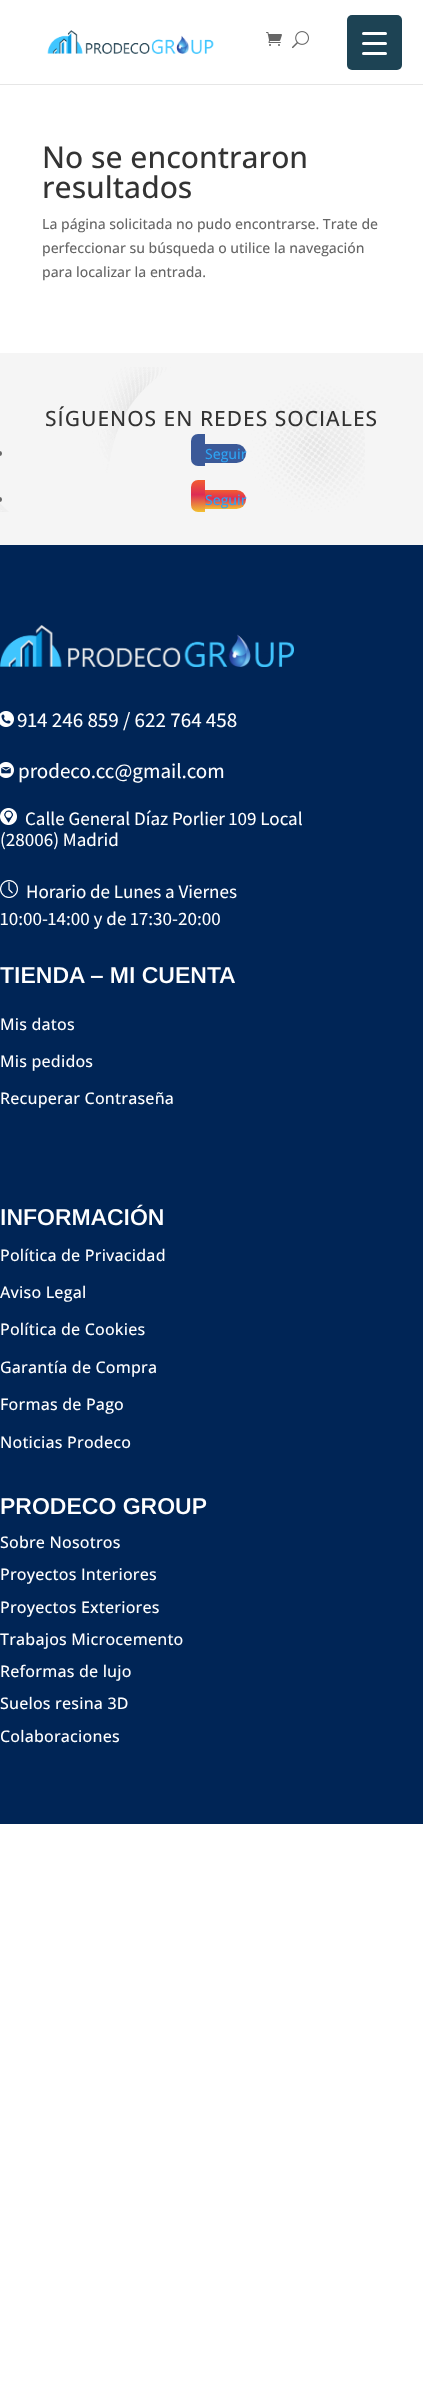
(async () => {
  const canvas = document.querySelector("canvas");
  canvas.width = 423;
  canvas.height = 2392;
  const ctx = canvas.getContext("2d");
  ctx.miterLimit = 4;
  ctx.fontKerning = "normal";
  async function loadImage(src) {
    const img = new Image();
    img.src = src;
    await img.decode();
    return img;
  }
  let gradient;

  ctx.fillStyle = "#ffffff";
  ctx.fillRect(0, 0, 423, 2392);
  ctx.fillStyle = "#1d4354";
  ctx.beginPath();
  ctx.roundRect(347, 15, 55, 55, 5);
  ctx.fill();
  ctx.fillStyle = "#ffffff";
  ctx.beginPath();
  ctx.roundRect(362, 42, 25, 3, 1.5);
  ctx.fill();
  ctx.beginPath();
  ctx.roundRect(362, 32, 25, 3, 1.5);
  ctx.fill();
  ctx.beginPath();
  ctx.roundRect(362, 52, 25, 3, 1.5);
  ctx.fill();
  ctx.fillStyle = "#e6e6e6";
  ctx.fillRect(0, 84, 423, 1);
  ctx.drawImage(await loadImage("img/1.png"), 47, 30, 167, 24);
  ctx.drawImage(await loadImage("img/2.png"), 266, 32, 16, 14);
  ctx.drawImage(await loadImage("img/3.png"), 292, 31, 17, 18);
  ctx.fillStyle = "#f5f5f5";
  ctx.fillRect(0, 353, 423, 192);
  ctx.drawImage(await loadImage("img/4.png"), 0, 367, 365, 145);
  ctx.fillStyle = "#666666";
  ctx.beginPath();
  ctx.arc(-0.5, 453.5, 2.5, 0, Math.PI * 2);
  ctx.fill();
  ctx.fillStyle = "#3b5998";
  ctx.beginPath();
  ctx.roundRect(191, 434, 14, 32, [7, 0, 0, 7]);
  ctx.fill();
  ctx.beginPath();
  ctx.roundRect(205, 444, 41, 19, [0, 9.5, 9.5, 0]);
  ctx.fill();
  ctx.fillStyle = "#666666";
  ctx.beginPath();
  ctx.arc(-0.5, 499.5, 2.5, 0, Math.PI * 2);
  ctx.fill();
  gradient = ctx.createLinearGradient(198, 480, 198, 512);
  gradient.addColorStop(0, "#f25d30");
  gradient.addColorStop(0.46, "#dd2c55");
  gradient.addColorStop(1, "#f2c130");
  ctx.fillStyle = gradient;
  ctx.beginPath();
  ctx.roundRect(191, 480, 14, 32, [7, 0, 0, 7]);
  ctx.fill();
  gradient = ctx.createLinearGradient(226, 490, 226, 509);
  gradient.addColorStop(0, "#f25d30");
  gradient.addColorStop(0.46, "#dd2c55");
  gradient.addColorStop(1, "#f2c130");
  ctx.fillStyle = gradient;
  ctx.beginPath();
  ctx.roundRect(205, 490, 41, 19, [0, 9.5, 9.5, 0]);
  ctx.fill();
  ctx.fillStyle = "#002556";
  ctx.fillRect(0, 545, 423, 1279);
  ctx.drawImage(await loadImage("img/5.png"), 0, 625, 294, 42);
  ctx.drawImage(await loadImage("img/6.png"), 0, 711, 14, 16);
  ctx.drawImage(await loadImage("img/7.png"), 0, 762, 14, 16);
  ctx.drawImage(await loadImage("img/8.png"), 0, 808, 17, 17);
  ctx.drawImage(await loadImage("img/9.png"), 0, 880, 18, 18);
  ctx.font = "500 30px Open Sans";
  ctx.fillStyle = "#333333";
  ctx.fillText("No se encontraron", 42, 168);
  ctx.fillText("resultados", 42, 198);
  ctx.font = "500 14px Open Sans";
  ctx.fillStyle = "#666666";
  for (const [text, x, y] of [
    ["La página solicitada no pudo encontrarse. Trate de", 42, 229],
    ["perfeccionar su búsqueda o utilice la navegación", 42, 253],
    ["para localizar la entrada.", 42, 277],
  ]) {
    ctx.fillText(text, x, y);
  }
  ctx.letterSpacing = "1px";
  ctx.font = "500 21px Open Sans";
  ctx.fillStyle = "#333333";
  ctx.fillText("SÍGUENOS EN REDES SOCIALES", 45, 426);
  ctx.letterSpacing = "0px";
  ctx.font = "500 14px Open Sans";
  ctx.fillStyle = "#2ea3f2";
  ctx.fillText("Seguir", 205, 459);
  ctx.fillText("Seguir", 205, 505);
  ctx.font = "500 21px Assistant";
  ctx.fillStyle = "#ffffff";
  ctx.fillText("914 246 859 / 622 764 458", 17, 727);
  ctx.fillText("prodeco.cc@gmail.com", 18, 778);
  ctx.font = "500 19px Assistant";
  for (const [text, x, y] of [
    ["Calle General Díaz Porlier 109 Local", 25, 825],
    ["(28006) Madrid", 0, 846],
    ["Horario de Lunes a Viernes", 26, 898],
    ["10:00-14:00 y de 17:30-20:00", 0, 925],
  ]) {
    ctx.fillText(text, x, y);
  }
  ctx.font = "600 23px Arimo";
  ctx.fillText("TIENDA – MI CUENTA", 0, 983);
  ctx.letterSpacing = "0.2px";
  ctx.font = "500 16px Open Sans";
  for (const [text, x, y] of [
    ["Mis datos", 0, 1030],
    ["Mis pedidos", 0, 1067],
    ["Recuperar Contraseña", 0, 1104],
  ]) {
    ctx.fillText(text, x, y);
  }
  ctx.letterSpacing = "0px";
  ctx.font = "600 23px Arimo";
  ctx.fillText("INFORMACIÓN", 0, 1225);
  ctx.letterSpacing = "0.2px";
  ctx.font = "500 16px Open Sans";
  for (const [text, x, y] of [
    ["Política de Privacidad", 0, 1261],
    ["Aviso Legal", 0, 1298],
    ["Política de Cookies", 0, 1335],
    ["Garantía de Compra", 0, 1373],
    ["Formas de Pago", 0, 1410],
    ["Noticias Prodeco", 0, 1448],
  ]) {
    ctx.fillText(text, x, y);
  }
  ctx.letterSpacing = "0px";
  ctx.font = "600 23px Arimo";
  ctx.fillText("PRODECO GROUP", 0, 1514);
  ctx.letterSpacing = "0.2px";
  ctx.font = "500 16px Open Sans";
  for (const [text, x, y] of [
    ["Sobre Nosotros", 0, 1548],
    ["Proyectos Interiores", 0, 1580],
    ["Proyectos Exteriores", 0, 1613],
    ["Trabajos Microcemento", 0, 1645],
    ["Reformas de lujo", 0, 1677],
    ["Suelos resina 3D", 0, 1709],
    ["Colaboraciones", 0, 1742],
  ]) {
    ctx.fillText(text, x, y);
  }
})();
